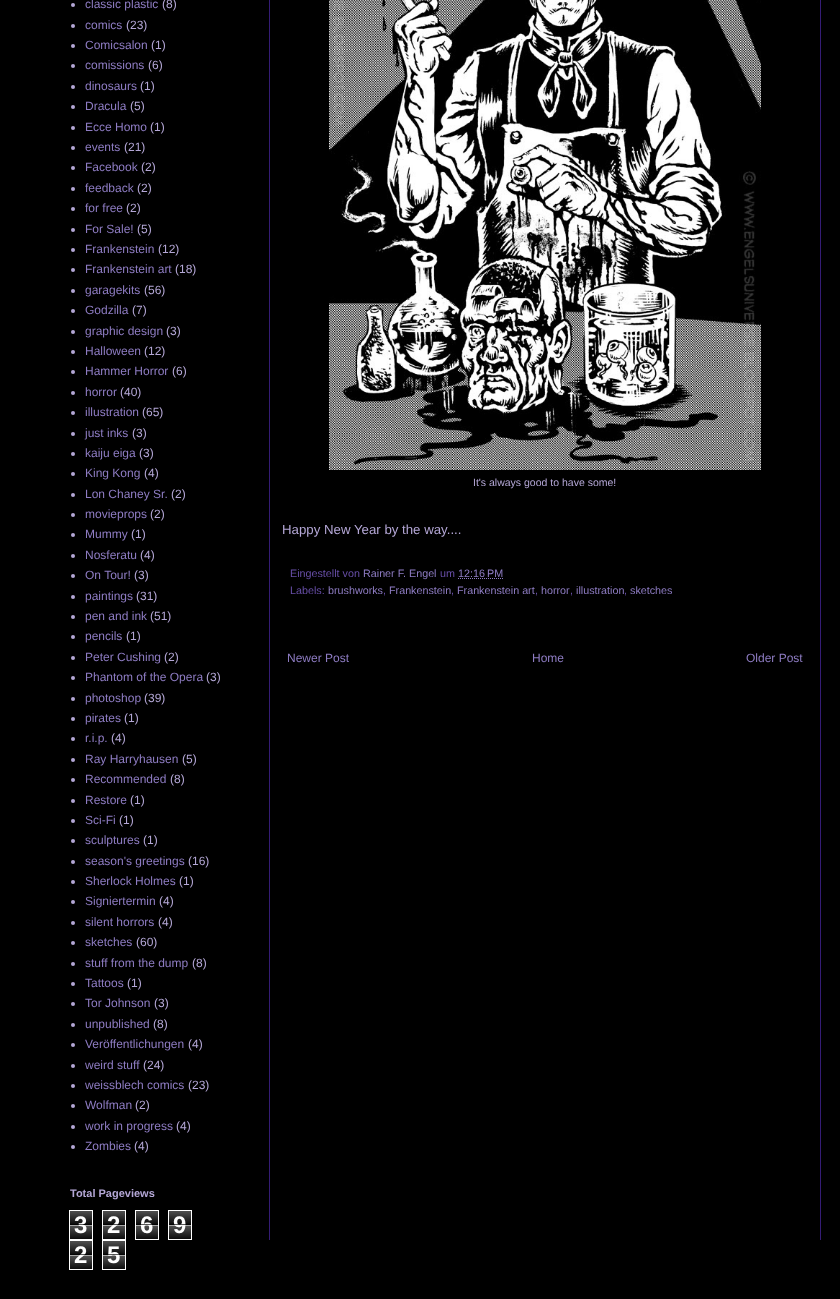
(async () => {
  const canvas = document.querySelector("canvas");
  canvas.width = 840;
  canvas.height = 1299;
  const ctx = canvas.getContext("2d");
  ctx.miterLimit = 4;
  ctx.fontKerning = "normal";
  async function loadImage(src) {
    const img = new Image();
    img.src = src;
    await img.decode();
    return img;
  }
  let path;

  ctx.fillStyle = "#000000";
  ctx.fillRect(0, 0, 840, 1299);
  ctx.fillStyle = "#b4a7d6";
  ctx.beginPath();
  ctx.arc(73, 5, 2, 0, Math.PI * 2);
  ctx.fill();
  ctx.beginPath();
  ctx.arc(73, 26, 2, 0, Math.PI * 2);
  ctx.fill();
  ctx.beginPath();
  ctx.arc(73, 46, 2, 0, Math.PI * 2);
  ctx.fill();
  ctx.beginPath();
  ctx.arc(73, 66, 2, 0, Math.PI * 2);
  ctx.fill();
  ctx.beginPath();
  ctx.arc(73, 87, 2, 0, Math.PI * 2);
  ctx.fill();
  ctx.beginPath();
  ctx.arc(73, 107, 2, 0, Math.PI * 2);
  ctx.fill();
  ctx.beginPath();
  ctx.arc(73, 128, 2, 0, Math.PI * 2);
  ctx.fill();
  ctx.beginPath();
  ctx.arc(73, 148, 2, 0, Math.PI * 2);
  ctx.fill();
  ctx.beginPath();
  ctx.arc(73, 168, 2, 0, Math.PI * 2);
  ctx.fill();
  ctx.beginPath();
  ctx.arc(73, 189, 2, 0, Math.PI * 2);
  ctx.fill();
  ctx.beginPath();
  ctx.arc(73, 209, 2, 0, Math.PI * 2);
  ctx.fill();
  ctx.beginPath();
  ctx.arc(73, 230, 2, 0, Math.PI * 2);
  ctx.fill();
  ctx.beginPath();
  ctx.arc(73, 250, 2, 0, Math.PI * 2);
  ctx.fill();
  ctx.beginPath();
  ctx.arc(73, 270, 2, 0, Math.PI * 2);
  ctx.fill();
  ctx.beginPath();
  ctx.arc(73, 291, 2, 0, Math.PI * 2);
  ctx.fill();
  ctx.beginPath();
  ctx.arc(73, 311, 2, 0, Math.PI * 2);
  ctx.fill();
  ctx.beginPath();
  ctx.arc(73, 332, 2, 0, Math.PI * 2);
  ctx.fill();
  ctx.beginPath();
  ctx.arc(73, 352, 2, 0, Math.PI * 2);
  ctx.fill();
  ctx.beginPath();
  ctx.arc(73, 372, 2, 0, Math.PI * 2);
  ctx.fill();
  ctx.beginPath();
  ctx.arc(73, 393, 2, 0, Math.PI * 2);
  ctx.fill();
  ctx.beginPath();
  ctx.arc(73, 413, 2, 0, Math.PI * 2);
  ctx.fill();
  ctx.beginPath();
  ctx.arc(73, 434, 2, 0, Math.PI * 2);
  ctx.fill();
  ctx.beginPath();
  ctx.arc(73, 454, 2, 0, Math.PI * 2);
  ctx.fill();
  ctx.beginPath();
  ctx.arc(73, 474, 2, 0, Math.PI * 2);
  ctx.fill();
  ctx.beginPath();
  ctx.arc(73, 495, 2, 0, Math.PI * 2);
  ctx.fill();
  ctx.beginPath();
  ctx.arc(73, 515, 2, 0, Math.PI * 2);
  ctx.fill();
  ctx.beginPath();
  ctx.arc(73, 535, 2, 0, Math.PI * 2);
  ctx.fill();
  ctx.beginPath();
  ctx.arc(73, 556, 2, 0, Math.PI * 2);
  ctx.fill();
  ctx.beginPath();
  ctx.arc(73, 576, 2, 0, Math.PI * 2);
  ctx.fill();
  ctx.beginPath();
  ctx.arc(73, 597, 2, 0, Math.PI * 2);
  ctx.fill();
  ctx.beginPath();
  ctx.arc(73, 617, 2, 0, Math.PI * 2);
  ctx.fill();
  ctx.beginPath();
  ctx.arc(73, 637, 2, 0, Math.PI * 2);
  ctx.fill();
  ctx.beginPath();
  ctx.arc(73, 658, 2, 0, Math.PI * 2);
  ctx.fill();
  ctx.beginPath();
  ctx.arc(73, 678, 2, 0, Math.PI * 2);
  ctx.fill();
  ctx.beginPath();
  ctx.arc(73, 699, 2, 0, Math.PI * 2);
  ctx.fill();
  ctx.beginPath();
  ctx.arc(73, 719, 2, 0, Math.PI * 2);
  ctx.fill();
  ctx.beginPath();
  ctx.arc(73, 739, 2, 0, Math.PI * 2);
  ctx.fill();
  ctx.beginPath();
  ctx.arc(73, 760, 2, 0, Math.PI * 2);
  ctx.fill();
  ctx.beginPath();
  ctx.arc(73, 780, 2, 0, Math.PI * 2);
  ctx.fill();
  ctx.beginPath();
  ctx.arc(73, 801, 2, 0, Math.PI * 2);
  ctx.fill();
  ctx.beginPath();
  ctx.arc(73, 821, 2, 0, Math.PI * 2);
  ctx.fill();
  ctx.beginPath();
  ctx.arc(73, 841, 2, 0, Math.PI * 2);
  ctx.fill();
  ctx.beginPath();
  ctx.arc(73, 862, 2, 0, Math.PI * 2);
  ctx.fill();
  ctx.beginPath();
  ctx.arc(73, 882, 2, 0, Math.PI * 2);
  ctx.fill();
  ctx.beginPath();
  ctx.arc(73, 902, 2, 0, Math.PI * 2);
  ctx.fill();
  ctx.beginPath();
  ctx.arc(73, 923, 2, 0, Math.PI * 2);
  ctx.fill();
  ctx.beginPath();
  ctx.arc(73, 943, 2, 0, Math.PI * 2);
  ctx.fill();
  ctx.beginPath();
  ctx.arc(73, 964, 2, 0, Math.PI * 2);
  ctx.fill();
  ctx.beginPath();
  ctx.arc(73, 984, 2, 0, Math.PI * 2);
  ctx.fill();
  ctx.beginPath();
  ctx.arc(73, 1004, 2, 0, Math.PI * 2);
  ctx.fill();
  ctx.beginPath();
  ctx.arc(73, 1025, 2, 0, Math.PI * 2);
  ctx.fill();
  ctx.beginPath();
  ctx.arc(73, 1045, 2, 0, Math.PI * 2);
  ctx.fill();
  ctx.beginPath();
  ctx.arc(73, 1066, 2, 0, Math.PI * 2);
  ctx.fill();
  ctx.beginPath();
  ctx.arc(73, 1086, 2, 0, Math.PI * 2);
  ctx.fill();
  ctx.beginPath();
  ctx.arc(73, 1106, 2, 0, Math.PI * 2);
  ctx.fill();
  ctx.beginPath();
  ctx.arc(73, 1127, 2, 0, Math.PI * 2);
  ctx.fill();
  ctx.beginPath();
  ctx.arc(73, 1147, 2, 0, Math.PI * 2);
  ctx.fill();
  ctx.drawImage(await loadImage("img/1.png"), 70, 1211, 22, 28);
  ctx.strokeStyle = "#ffffff";
  ctx.strokeRect(69.5, 1210.5, 23, 29);
  ctx.drawImage(await loadImage("img/1.png"), 103, 1211, 22, 28);
  ctx.strokeRect(102.5, 1210.5, 23, 29);
  ctx.drawImage(await loadImage("img/1.png"), 136, 1211, 22, 28);
  ctx.strokeRect(135.5, 1210.5, 23, 29);
  ctx.drawImage(await loadImage("img/1.png"), 169, 1211, 22, 28);
  ctx.strokeRect(168.5, 1210.5, 23, 29);
  ctx.drawImage(await loadImage("img/1.png"), 70, 1241, 22, 28);
  ctx.strokeRect(69.5, 1240.5, 23, 29);
  ctx.drawImage(await loadImage("img/1.png"), 103, 1241, 22, 28);
  ctx.strokeRect(102.5, 1240.5, 23, 29);
  ctx.drawImage(await loadImage("img/2.png"), 329, 0, 432, 470);
  path = new Path2D("M458 578.5H503.5");
  ctx.strokeStyle = "#8e7cc3";
  ctx.setLineDash([1, 1]);
  ctx.stroke(path);
  ctx.fillStyle = "#351c75";
  ctx.fillRect(269, 0, 1, 1240);
  ctx.fillRect(820, 0, 1, 1240);
  ctx.font = "12px Liberation Sans";
  ctx.fillStyle = "#8e7cc3";
  ctx.fillText("classic plastic", 85, 8);
  ctx.fillStyle = "#b4a7d6";
  ctx.fillText("(8)", 162, 8);
  ctx.fillStyle = "#8e7cc3";
  ctx.fillText("comics", 85, 29);
  ctx.fillStyle = "#b4a7d6";
  ctx.fillText("(23)", 126, 29);
  ctx.fillStyle = "#8e7cc3";
  ctx.fillText("Comicsalon", 85, 49);
  ctx.fillStyle = "#b4a7d6";
  ctx.fillText("(1)", 151, 49);
  ctx.fillStyle = "#8e7cc3";
  ctx.fillText("comissions", 85, 69);
  ctx.fillStyle = "#b4a7d6";
  ctx.fillText("(6)", 148, 69);
  ctx.fillStyle = "#8e7cc3";
  ctx.fillText("dinosaurs", 85, 90);
  ctx.fillStyle = "#b4a7d6";
  ctx.fillText("(1)", 140, 90);
  ctx.fillStyle = "#8e7cc3";
  ctx.fillText("Dracula", 85, 110);
  ctx.fillStyle = "#b4a7d6";
  ctx.fillText("(5)", 130, 110);
  ctx.fillStyle = "#8e7cc3";
  ctx.fillText("Ecce Homo", 85, 131);
  ctx.fillStyle = "#b4a7d6";
  ctx.fillText("(1)", 150, 131);
  ctx.fillStyle = "#8e7cc3";
  ctx.fillText("events", 85, 151);
  ctx.fillStyle = "#b4a7d6";
  ctx.fillText("(21)", 124, 151);
  ctx.fillStyle = "#8e7cc3";
  ctx.fillText("Facebook", 85, 171);
  ctx.fillStyle = "#b4a7d6";
  ctx.fillText("(2)", 141, 171);
  ctx.fillStyle = "#8e7cc3";
  ctx.fillText("feedback", 85, 192);
  ctx.fillStyle = "#b4a7d6";
  ctx.fillText("(2)", 137, 192);
  ctx.fillStyle = "#8e7cc3";
  ctx.fillText("for free", 85, 212);
  ctx.fillStyle = "#b4a7d6";
  ctx.fillText("(2)", 126, 212);
  ctx.fillStyle = "#8e7cc3";
  ctx.fillText("For Sale!", 85, 233);
  ctx.fillStyle = "#b4a7d6";
  ctx.fillText("(5)", 137, 233);
  ctx.fillStyle = "#8e7cc3";
  ctx.fillText("Frankenstein", 85, 253);
  ctx.fillStyle = "#b4a7d6";
  ctx.fillText("(12)", 158, 253);
  ctx.fillStyle = "#8e7cc3";
  ctx.fillText("Frankenstein art", 85, 273);
  ctx.fillStyle = "#b4a7d6";
  ctx.fillText("(18)", 175, 273);
  ctx.fillStyle = "#8e7cc3";
  ctx.fillText("garagekits", 85, 294);
  ctx.fillStyle = "#b4a7d6";
  ctx.fillText("(56)", 144, 294);
  ctx.fillStyle = "#8e7cc3";
  ctx.fillText("Godzilla", 85, 314);
  ctx.fillStyle = "#b4a7d6";
  ctx.fillText("(7)", 132, 314);
  ctx.fillStyle = "#8e7cc3";
  ctx.fillText("graphic design", 85, 335);
  ctx.fillStyle = "#b4a7d6";
  ctx.fillText("(3)", 166, 335);
  ctx.fillStyle = "#8e7cc3";
  ctx.fillText("Halloween", 85, 355);
  ctx.fillStyle = "#b4a7d6";
  ctx.fillText("(12)", 144, 355);
  ctx.fillStyle = "#8e7cc3";
  ctx.fillText("Hammer Horror", 85, 375);
  ctx.fillStyle = "#b4a7d6";
  ctx.fillText("(6)", 172, 375);
  ctx.fillStyle = "#8e7cc3";
  ctx.fillText("horror", 85, 396);
  ctx.fillStyle = "#b4a7d6";
  ctx.fillText("(40)", 120, 396);
  ctx.fillStyle = "#8e7cc3";
  ctx.fillText("illustration", 85, 416);
  ctx.fillStyle = "#b4a7d6";
  ctx.fillText("(65)", 142, 416);
  ctx.fillStyle = "#8e7cc3";
  ctx.fillText("just inks", 85, 437);
  ctx.fillStyle = "#b4a7d6";
  ctx.fillText("(3)", 132, 437);
  ctx.fillStyle = "#8e7cc3";
  ctx.fillText("kaiju eiga", 85, 457);
  ctx.fillStyle = "#b4a7d6";
  ctx.fillText("(3)", 139, 457);
  ctx.fillStyle = "#8e7cc3";
  ctx.fillText("King Kong", 85, 477);
  ctx.fillStyle = "#b4a7d6";
  ctx.fillText("(4)", 144, 477);
  ctx.fillStyle = "#8e7cc3";
  ctx.fillText("Lon Chaney Sr.", 85, 498);
  ctx.fillStyle = "#b4a7d6";
  ctx.fillText("(2)", 171, 498);
  ctx.fillStyle = "#8e7cc3";
  ctx.fillText("movieprops", 85, 518);
  ctx.fillStyle = "#b4a7d6";
  ctx.fillText("(2)", 150, 518);
  ctx.fillStyle = "#8e7cc3";
  ctx.fillText("Mummy", 85, 538);
  ctx.fillStyle = "#b4a7d6";
  ctx.fillText("(1)", 131, 538);
  ctx.fillStyle = "#8e7cc3";
  ctx.fillText("Nosferatu", 85, 559);
  ctx.fillStyle = "#b4a7d6";
  ctx.fillText("(4)", 140, 559);
  ctx.fillStyle = "#8e7cc3";
  ctx.fillText("On Tour!", 85, 579);
  ctx.fillStyle = "#b4a7d6";
  ctx.fillText("(3)", 134, 579);
  ctx.fillStyle = "#8e7cc3";
  ctx.fillText("paintings", 85, 600);
  ctx.fillStyle = "#b4a7d6";
  ctx.fillText("(31)", 136, 600);
  ctx.fillStyle = "#8e7cc3";
  ctx.fillText("pen and ink", 85, 620);
  ctx.fillStyle = "#b4a7d6";
  ctx.fillText("(51)", 150, 620);
  ctx.fillStyle = "#8e7cc3";
  ctx.fillText("pencils", 85, 640);
  ctx.fillStyle = "#b4a7d6";
  ctx.fillText("(1)", 126, 640);
  ctx.fillStyle = "#8e7cc3";
  ctx.fillText("Peter Cushing", 85, 661);
  ctx.fillStyle = "#b4a7d6";
  ctx.fillText("(2)", 164, 661);
  ctx.fillStyle = "#8e7cc3";
  ctx.fillText("Phantom of the Opera", 85, 681);
  ctx.fillStyle = "#b4a7d6";
  ctx.fillText("(3)", 206, 681);
  ctx.fillStyle = "#8e7cc3";
  ctx.fillText("photoshop", 85, 702);
  ctx.fillStyle = "#b4a7d6";
  ctx.fillText("(39)", 144, 702);
  ctx.fillStyle = "#8e7cc3";
  ctx.fillText("pirates", 85, 722);
  ctx.fillStyle = "#b4a7d6";
  ctx.fillText("(1)", 124, 722);
  ctx.fillStyle = "#8e7cc3";
  ctx.fillText("r.i.p.", 85, 742);
  ctx.fillStyle = "#b4a7d6";
  ctx.fillText("(4)", 111, 742);
  ctx.fillStyle = "#8e7cc3";
  ctx.fillText("Ray Harryhausen", 85, 763);
  ctx.fillStyle = "#b4a7d6";
  ctx.fillText("(5)", 182, 763);
  ctx.fillStyle = "#8e7cc3";
  ctx.fillText("Recommended", 85, 783);
  ctx.fillStyle = "#b4a7d6";
  ctx.fillText("(8)", 170, 783);
  ctx.fillStyle = "#8e7cc3";
  ctx.fillText("Restore", 85, 804);
  ctx.fillStyle = "#b4a7d6";
  ctx.fillText("(1)", 130, 804);
  ctx.fillStyle = "#8e7cc3";
  ctx.fillText("Sci-Fi", 85, 824);
  ctx.fillStyle = "#b4a7d6";
  ctx.fillText("(1)", 119, 824);
  ctx.fillStyle = "#8e7cc3";
  ctx.fillText("sculptures", 85, 844);
  ctx.fillStyle = "#b4a7d6";
  ctx.fillText("(1)", 143, 844);
  ctx.fillStyle = "#8e7cc3";
  ctx.fillText("season's greetings", 85, 865);
  ctx.fillStyle = "#b4a7d6";
  ctx.fillText("(16)", 188, 865);
  ctx.fillStyle = "#8e7cc3";
  ctx.fillText("Sherlock Holmes", 85, 885);
  ctx.fillStyle = "#b4a7d6";
  ctx.fillText("(1)", 179, 885);
  ctx.fillStyle = "#8e7cc3";
  ctx.fillText("Signiertermin", 85, 905);
  ctx.fillStyle = "#b4a7d6";
  ctx.fillText("(4)", 159, 905);
  ctx.fillStyle = "#8e7cc3";
  ctx.fillText("silent horrors", 85, 926);
  ctx.fillStyle = "#b4a7d6";
  ctx.fillText("(4)", 158, 926);
  ctx.fillStyle = "#8e7cc3";
  ctx.fillText("sketches", 85, 946);
  ctx.fillStyle = "#b4a7d6";
  ctx.fillText("(60)", 136, 946);
  ctx.fillStyle = "#8e7cc3";
  ctx.fillText("stuff from the dump", 85, 967);
  ctx.fillStyle = "#b4a7d6";
  ctx.fillText("(8)", 192, 967);
  ctx.fillStyle = "#8e7cc3";
  ctx.fillText("Tattoos", 85, 987);
  ctx.fillStyle = "#b4a7d6";
  ctx.fillText("(1)", 127, 987);
  ctx.fillStyle = "#8e7cc3";
  ctx.fillText("Tor Johnson", 85, 1007);
  ctx.fillStyle = "#b4a7d6";
  ctx.fillText("(3)", 154, 1007);
  ctx.fillStyle = "#8e7cc3";
  ctx.fillText("unpublished", 85, 1028);
  ctx.fillStyle = "#b4a7d6";
  ctx.fillText("(8)", 153, 1028);
  ctx.fillStyle = "#8e7cc3";
  ctx.fillText("Veröffentlichungen", 85, 1048);
  ctx.fillStyle = "#b4a7d6";
  ctx.fillText("(4)", 188, 1048);
  ctx.fillStyle = "#8e7cc3";
  ctx.fillText("weird stuff", 85, 1069);
  ctx.fillStyle = "#b4a7d6";
  ctx.fillText("(24)", 143, 1069);
  ctx.fillStyle = "#8e7cc3";
  ctx.fillText("weissblech comics", 85, 1089);
  ctx.fillStyle = "#b4a7d6";
  ctx.fillText("(23)", 188, 1089);
  ctx.fillStyle = "#8e7cc3";
  ctx.fillText("Wolfman", 85, 1109);
  ctx.fillStyle = "#b4a7d6";
  ctx.fillText("(2)", 135, 1109);
  ctx.fillStyle = "#8e7cc3";
  ctx.fillText("work in progress", 85, 1130);
  ctx.fillStyle = "#b4a7d6";
  ctx.fillText("(4)", 176, 1130);
  ctx.fillStyle = "#8e7cc3";
  ctx.fillText("Zombies", 85, 1150);
  ctx.fillStyle = "#b4a7d6";
  ctx.fillText("(4)", 134, 1150);
  ctx.font = "bold 11px Liberation Sans";
  ctx.fillText("Total Pageviews", 70, 1197);
  ctx.font = "bold 24px Liberation Sans";
  ctx.fillStyle = "#ffffff";
  ctx.fillText("3", 74, 1233);
  ctx.fillStyle = "rgba(0, 0, 0, 0.65)";
  ctx.fillRect(70, 1224, 22, 1);
  ctx.fillStyle = "rgba(255, 255, 255, 0.65)";
  ctx.fillRect(70, 1225, 22, 1);
  ctx.fillStyle = "#ffffff";
  ctx.fillText("2", 107, 1233);
  ctx.fillStyle = "rgba(0, 0, 0, 0.65)";
  ctx.fillRect(103, 1224, 22, 1);
  ctx.fillStyle = "rgba(255, 255, 255, 0.65)";
  ctx.fillRect(103, 1225, 22, 1);
  ctx.fillStyle = "#ffffff";
  ctx.fillText("6", 140, 1233);
  ctx.fillStyle = "rgba(0, 0, 0, 0.65)";
  ctx.fillRect(136, 1224, 22, 1);
  ctx.fillStyle = "rgba(255, 255, 255, 0.65)";
  ctx.fillRect(136, 1225, 22, 1);
  ctx.fillStyle = "#ffffff";
  ctx.fillText("9", 173, 1233);
  ctx.fillStyle = "rgba(0, 0, 0, 0.65)";
  ctx.fillRect(169, 1224, 22, 1);
  ctx.fillStyle = "rgba(255, 255, 255, 0.65)";
  ctx.fillRect(169, 1225, 22, 1);
  ctx.fillStyle = "#ffffff";
  ctx.fillText("2", 74, 1263);
  ctx.fillStyle = "rgba(0, 0, 0, 0.65)";
  ctx.fillRect(70, 1254, 22, 1);
  ctx.fillStyle = "rgba(255, 255, 255, 0.65)";
  ctx.fillRect(70, 1255, 22, 1);
  ctx.fillStyle = "#ffffff";
  ctx.fillText("5", 107, 1263);
  ctx.fillStyle = "rgba(0, 0, 0, 0.65)";
  ctx.fillRect(103, 1254, 22, 1);
  ctx.fillStyle = "rgba(255, 255, 255, 0.65)";
  ctx.fillRect(103, 1255, 22, 1);
  ctx.font = "10.5px Liberation Sans";
  ctx.fillStyle = "#b4a7d6";
  ctx.fillText("It's always good to have some!", 473, 486);
  ctx.font = "13.25px Liberation Sans";
  ctx.fillText("Happy New Year by the way....", 282, 534);
  ctx.font = "10.75px Liberation Sans";
  ctx.fillStyle = "#674ea7";
  ctx.fillText("Eingestellt von", 290, 577);
  ctx.fillStyle = "#8e7cc3";
  ctx.fillText("Rainer F. Engel", 363, 577);
  ctx.fillStyle = "#674ea7";
  ctx.fillText("um", 440, 577);
  ctx.fillStyle = "#8e7cc3";
  ctx.fillText("12:16 PM", 458, 577);
  ctx.fillStyle = "#674ea7";
  ctx.fillText("Labels:", 290, 594);
  ctx.fillStyle = "#8e7cc3";
  ctx.fillText("brushworks", 328, 594);
  ctx.fillStyle = "#674ea7";
  ctx.fillText(",", 383, 594);
  ctx.fillStyle = "#8e7cc3";
  ctx.fillText("Frankenstein", 389, 594);
  ctx.fillStyle = "#674ea7";
  ctx.fillText(",", 451, 594);
  ctx.fillStyle = "#8e7cc3";
  ctx.fillText("Frankenstein art", 457, 594);
  ctx.fillStyle = "#674ea7";
  ctx.fillText(",", 535, 594);
  ctx.fillStyle = "#8e7cc3";
  for (const [text, x, y] of [
    ["horror", 541, 594],
    ["illustration", 576, 594],
    ["sketches", 630, 594],
  ]) {
    ctx.fillText(text, x, y);
  }
  ctx.fillStyle = "#674ea7";
  ctx.fillText(",", 570, 594);
  ctx.fillText(",", 624, 594);
  ctx.font = "12px Liberation Sans";
  ctx.fillStyle = "#8e7cc3";
  for (const [text, x, y] of [
    ["Newer Post", 287, 662],
    ["Home", 532, 662],
    ["Older Post", 746, 662],
  ]) {
    ctx.fillText(text, x, y);
  }
})();
